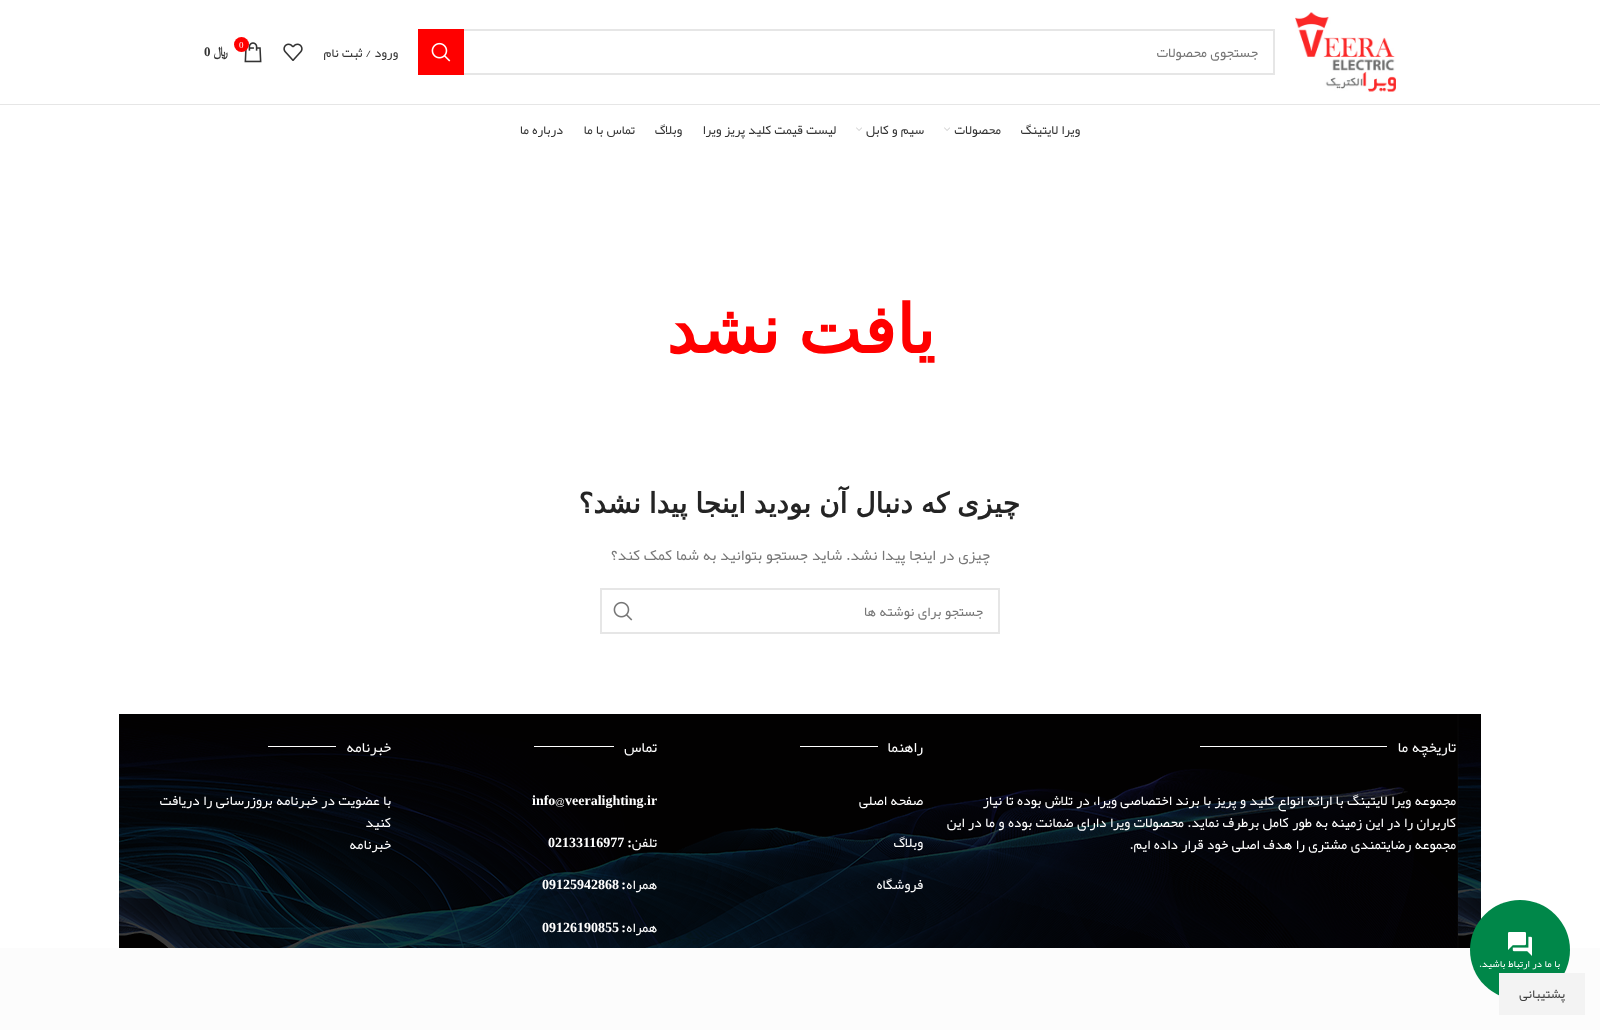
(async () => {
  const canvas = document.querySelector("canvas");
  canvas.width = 1600;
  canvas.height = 1030;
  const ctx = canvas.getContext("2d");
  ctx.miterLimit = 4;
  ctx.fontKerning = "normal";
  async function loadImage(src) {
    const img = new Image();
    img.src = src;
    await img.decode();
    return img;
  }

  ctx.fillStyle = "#fcfcfc";
  ctx.fillRect(0, 0, 1600, 1030);
  ctx.fillStyle = "#ffffff";
  ctx.fillRect(0, 0, 1600, 948);
  ctx.fillStyle = "#e6e6e6";
  ctx.fillRect(0, 104, 1600, 1);
  ctx.drawImage(await loadImage("img/1.png"), 1295, 12, 101, 80);
  ctx.strokeStyle = "#e6e6e6";
  ctx.lineWidth = 2;
  ctx.strokeRect(419, 30, 855, 44);
  ctx.fillStyle = "#ff0000";
  ctx.fillRect(418, 29, 46, 46);
  ctx.drawImage(await loadImage("img/2.png"), 431, 42, 20, 20);
  ctx.drawImage(await loadImage("img/3.png"), 283, 43, 20, 18);
  ctx.drawImage(await loadImage("img/4.png"), 244, 42, 18, 21);
  ctx.beginPath();
  ctx.arc(241.5, 44.5, 7.5, 0, Math.PI * 2);
  ctx.fill();
  ctx.drawImage(await loadImage("img/5.png"), 944, 127, 6, 4);
  ctx.drawImage(await loadImage("img/5.png"), 856, 127, 6, 4);
  ctx.strokeRect(601, 589, 398, 44);
  ctx.drawImage(await loadImage("img/6.png"), 613, 601, 20, 20);
  ctx.drawImage(await loadImage("img/7.png"), 119, 714, 1362, 234);
  for (const [x, y, w, h, color] of [
    [1200, 746, 187, 1, "#ffffff"],
    [800, 746, 78, 1, "#ffffff"],
    [534, 746, 80, 1, "#ffffff"],
    [268, 746, 68, 1, "#ffffff"],
  ]) {
    ctx.fillStyle = color;
    ctx.fillRect(x, y, w, h);
  }
  ctx.fillStyle = "#008749";
  ctx.beginPath();
  ctx.arc(1520, 950, 50, 0, Math.PI * 2);
  ctx.fill();
  ctx.drawImage(await loadImage("img/8.png"), 1508, 932, 24, 24);
  ctx.fillStyle = "#f3f3f3";
  ctx.fillRect(1499, 973, 86, 42);
  ctx.wordSpacing = "1.1px";
  ctx.direction = "rtl";
  ctx.font = "14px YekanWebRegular";
  ctx.fillStyle = "#777777";
  ctx.fillText("جستجوی محصولات", 1258, 57);
  ctx.wordSpacing = "1px";
  ctx.font = "13px YekanWebRegular";
  ctx.fillStyle = "#333333";
  ctx.fillText("ورود / ثبت نام", 398, 57);
  ctx.wordSpacing = "0px";
  ctx.direction = "ltr";
  ctx.font = "9px Liberation Serif";
  ctx.fillStyle = "#ffffff";
  ctx.fillText("0", 239, 48);
  ctx.direction = "rtl";
  ctx.font = "bold 13px FreeSerif";
  ctx.fillStyle = "#333333";
  ctx.fillText("﷼", 228, 56);
  ctx.direction = "ltr";
  ctx.font = "bold 13px Liberation Serif";
  ctx.fillText("0", 204, 56);
  ctx.wordSpacing = "1px";
  ctx.direction = "rtl";
  ctx.font = "13px YekanWebRegular";
  ctx.fillText("ویرا لایتینگ", 1080, 134);
  ctx.wordSpacing = "0px";
  ctx.fillText("محصولات", 1001, 134);
  ctx.wordSpacing = "1px";
  ctx.fillText("سیم و کابل", 924, 134);
  ctx.fillText("لیست قیمت کلید پریز ویرا", 836, 134);
  ctx.wordSpacing = "0px";
  ctx.fillText("وبلاگ", 682, 134);
  ctx.wordSpacing = "1px";
  ctx.fillText("تماس با ما", 635, 134);
  ctx.fillText("درباره ما", 563, 134);
  ctx.wordSpacing = "-3px";
  ctx.font = "bold 67px DejaVu Sans";
  ctx.fillStyle = "#ff0000";
  ctx.fillText("یافت نشد", 935, 353);
  ctx.wordSpacing = "-1px";
  ctx.font = "bold 28px DejaVu Sans";
  ctx.fillStyle = "#242424";
  ctx.fillText("چیزی که دنبال آن بودید اینجا پیدا نشد؟", 1020, 513);
  ctx.wordSpacing = "1.25px";
  ctx.font = "15.4px YekanWebRegular";
  ctx.fillStyle = "#777777";
  ctx.fillText("چیزی در اینجا پیدا نشد. شاید جستجو بتوانید به شما کمک کند؟", 990, 560);
  ctx.wordSpacing = "1.1px";
  ctx.font = "14px YekanWebRegular";
  ctx.fillText("جستجو برای نوشته ها", 983, 616);
  ctx.wordSpacing = "1px";
  ctx.font = "15px YekanWebRegular";
  ctx.fillStyle = "#ffffff";
  ctx.fillText("تاریخچه ما", 1456, 752);
  ctx.wordSpacing = "1.1px";
  ctx.font = "14px YekanWebRegular";
  for (const [text, x, y] of [
    ["مجموعه ویرا لایتینگ با ارائه انواع کلید و پریز با برند اختصاصی ویرا، در تلاش بوده تا نیاز", 1456, 805],
    ["کاربران را در این زمینه به طور کامل برطرف نماید. محصولات ویرا دارای ضمانت بوده و ما در این", 1456, 827],
    ["مجموعه رضایتمندی مشتری را هدف اصلی خود قرار داده ایم.", 1456, 849],
  ]) {
    ctx.fillText(text, x, y);
  }
  ctx.wordSpacing = "0px";
  ctx.font = "15px YekanWebRegular";
  ctx.fillText("راهنما", 923, 752);
  ctx.wordSpacing = "1.1px";
  ctx.font = "14px YekanWebRegular";
  ctx.fillText("صفحه اصلی", 923, 805);
  ctx.wordSpacing = "0px";
  ctx.fillText("وبلاگ", 923, 847);
  ctx.fillText("فروشگاه", 923, 889);
  ctx.font = "15px YekanWebRegular";
  ctx.fillText("تماس", 657, 752);
  ctx.direction = "ltr";
  ctx.font = "bold 14px Liberation Serif";
  ctx.fillText("ir", 647, 805);
  ctx.font = "14px YekanWebRegular";
  ctx.fillText(".", 643, 805);
  ctx.fillText("@", 555, 805);
  ctx.font = "bold 14px Liberation Serif";
  ctx.fillText("veeralighting", 565, 805);
  ctx.fillText("info", 532, 805);
  ctx.direction = "rtl";
  ctx.font = "14px YekanWebRegular";
  ctx.fillText("تلفن", 657, 847);
  ctx.font = "bold 14px Liberation Serif";
  ctx.fillText(":", 632, 847);
  ctx.direction = "ltr";
  ctx.fillText("02133116977", 548, 847);
  ctx.direction = "rtl";
  ctx.font = "14px YekanWebRegular";
  ctx.fillText("همراه", 657, 889);
  ctx.font = "bold 14px Liberation Serif";
  ctx.fillText(":", 626, 889);
  ctx.direction = "ltr";
  ctx.fillText("09125942868", 542, 889);
  ctx.direction = "rtl";
  ctx.font = "14px YekanWebRegular";
  ctx.fillText("همراه", 657, 932);
  ctx.font = "bold 14px Liberation Serif";
  ctx.fillText(":", 626, 932);
  ctx.direction = "ltr";
  ctx.fillText("09126190855", 542, 932);
  ctx.direction = "rtl";
  ctx.font = "15px YekanWebRegular";
  ctx.fillText("خبرنامه", 391, 752);
  ctx.wordSpacing = "1.1px";
  ctx.font = "14px YekanWebRegular";
  ctx.fillText("با عضویت در خبرنامه بروزرسانی را دریافت", 391, 805);
  ctx.wordSpacing = "0px";
  ctx.fillText("کنید", 391, 827);
  ctx.fillText("خبرنامه", 391, 849);
  ctx.wordSpacing = "1px";
  ctx.font = "10px YekanWebRegular";
  ctx.fillText("با ما در ارتباط باشید.", 1560, 967);
  ctx.wordSpacing = "0px";
  ctx.font = "13px YekanWebRegular";
  ctx.fillStyle = "#3e3e3e";
  ctx.fillText("پشتیبانی", 1565, 998);
})();
